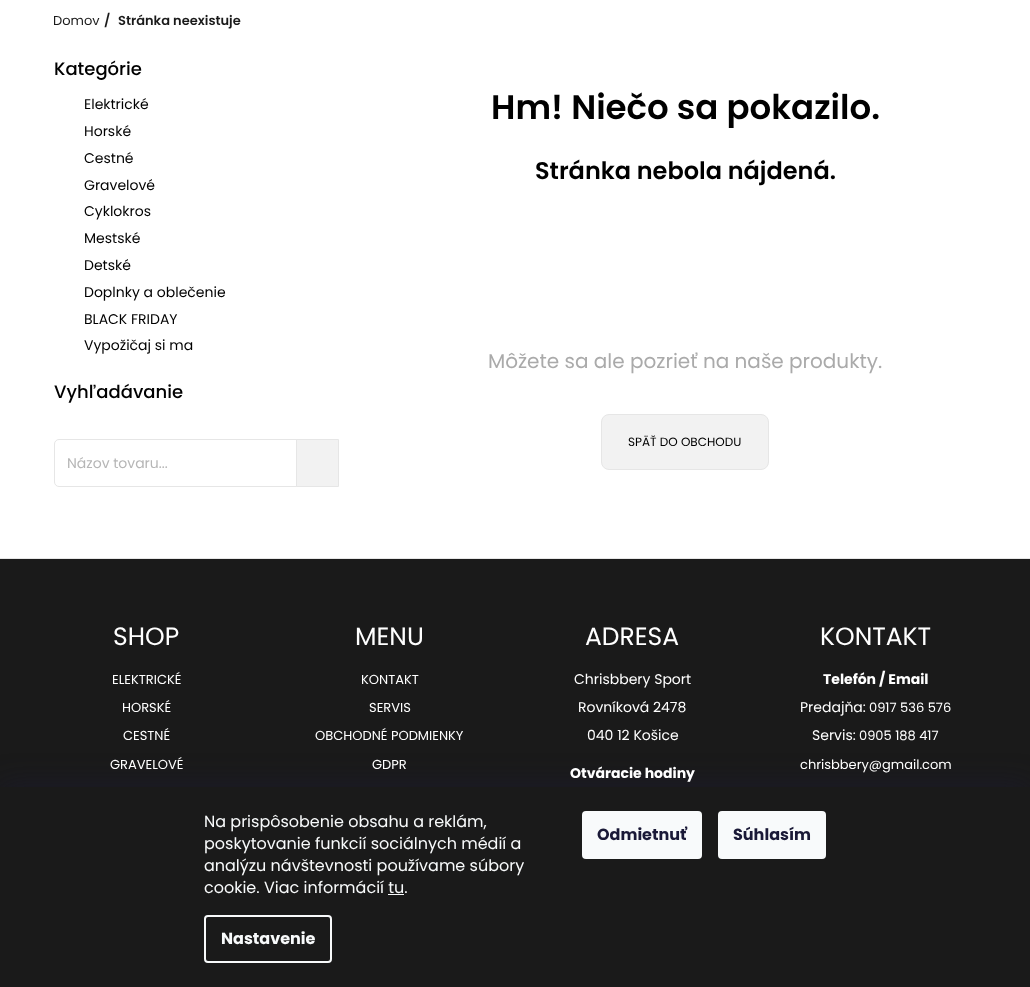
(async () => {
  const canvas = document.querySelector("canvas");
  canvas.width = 1030;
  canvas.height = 987;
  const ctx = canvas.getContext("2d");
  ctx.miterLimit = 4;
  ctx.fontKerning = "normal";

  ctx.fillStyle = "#ffffff";
  ctx.fillRect(0, 0, 1030, 987);
  ctx.beginPath();
  ctx.roundRect(54.5, 439.5, 284, 47, 4.5);
  ctx.strokeStyle = "#e6e6e6";
  ctx.stroke();
  ctx.fillStyle = "#f2f2f2";
  ctx.beginPath();
  ctx.rect(296.5, 439.5, 42, 47);
  ctx.fill();
  ctx.stroke();
  ctx.beginPath();
  ctx.roundRect(601.5, 414.5, 167, 55, 7.5);
  ctx.fill();
  ctx.stroke();
  ctx.fillStyle = "#1a1a1a";
  ctx.fillRect(0, 559, 1030, 228);
  ctx.fillStyle = "#e6e6e6";
  ctx.fillRect(0, 558, 1030, 1);
  ctx.fillStyle = "rgba(27, 25, 57, 0.5)";
  ctx.filter = "blur(15px)";
  ctx.beginPath();
  ctx.rect(0, 787, 1030, 200);
  ctx.fill();
  ctx.filter = "none";
  ctx.fillStyle = "#1a1a1a";
  ctx.fillRect(0, 787, 1030, 200);
  ctx.fillStyle = "#f8fafb";
  ctx.fillRect(388, 894, 16, 1);
  ctx.beginPath();
  ctx.roundRect(205, 916, 126, 46, 3);
  ctx.strokeStyle = "#f8fafb";
  ctx.lineWidth = 2;
  ctx.stroke();
  ctx.beginPath();
  ctx.roundRect(582, 811, 120, 48, 4);
  ctx.fill();
  ctx.beginPath();
  ctx.roundRect(718, 811, 108, 48, 4);
  ctx.fill();
  ctx.font = "13px Poppins";
  ctx.fillStyle = "#1a1a1a";
  ctx.fillText("Domov", 53, 25);
  ctx.font = "600 13px Poppins";
  ctx.fillText("/", 104, 25);
  ctx.fillText("Stránka neexistuje", 118, 25);
  ctx.font = "500 18px Poppins";
  ctx.fillStyle = "#000000";
  ctx.fillText("Kategórie", 54, 75);
  ctx.font = "14px Poppins";
  for (const [text, x, y] of [
    ["Elektrické", 84, 109],
    ["Horské", 84, 136],
    ["Cestné", 84, 163],
    ["Gravelové", 84, 190],
    ["Cyklokros", 84, 216],
    ["Mestské", 84, 243],
    ["Detské", 84, 270],
    ["Doplnky a oblečenie", 84, 297],
    ["BLACK FRIDAY", 84, 324],
    ["Vypožičaj si ma", 84, 350],
  ]) {
    ctx.fillText(text, x, y);
  }
  ctx.font = "500 18px Poppins";
  ctx.fillText("Vyhľadávanie", 54, 398);
  ctx.font = "14px Poppins";
  ctx.fillStyle = "#b6b6b6";
  ctx.fillText("Názov tovaru...", 67, 468);
  ctx.font = "600 34px Poppins";
  ctx.fillStyle = "#000000";
  ctx.fillText("Hm! Niečo sa pokazilo.", 491, 119);
  ctx.font = "600 24px Poppins";
  ctx.fillText("Stránka nebola nájdená.", 535, 179);
  ctx.font = "20px Poppins";
  ctx.fillStyle = "#aaaaaa";
  ctx.fillText("Môžete sa ale pozrieť na naše produkty.", 488, 368);
  ctx.font = "12px Poppins";
  ctx.fillStyle = "#000000";
  ctx.fillText("SPÄŤ DO OBCHODU", 628, 446);
  ctx.font = "25px Poppins";
  ctx.fillStyle = "#ffffff";
  ctx.fillText("SHOP", 113, 645);
  ctx.font = "13px Poppins";
  for (const [text, x, y] of [
    ["ELEKTRICKÉ", 112, 684],
    ["HORSKÉ", 122, 712],
    ["CESTNÉ", 123, 740],
    ["GRAVELOVÉ", 110, 769],
  ]) {
    ctx.fillText(text, x, y);
  }
  ctx.font = "25px Poppins";
  ctx.fillText("MENU", 355, 645);
  ctx.font = "13px Poppins";
  for (const [text, x, y] of [
    ["KONTAKT", 361, 684],
    ["SERVIS", 369, 712],
    ["OBCHODNÉ PODMIENKY", 315, 740],
    ["GDPR", 372, 769],
  ]) {
    ctx.fillText(text, x, y);
  }
  ctx.font = "25px Poppins";
  ctx.fillText("ADRESA", 585, 645);
  ctx.font = "14px Poppins";
  for (const [text, x, y] of [
    ["Chrisbbery Sport", 574, 684],
    ["Rovníková 2478", 578, 712],
    ["040 12 Košice", 587, 740],
  ]) {
    ctx.fillText(text, x, y);
  }
  ctx.font = "bold 14px Poppins";
  ctx.fillText("Otváracie hodiny", 570, 778);
  ctx.font = "25px Poppins";
  ctx.fillText("KONTAKT", 820, 645);
  ctx.font = "bold 14px Poppins";
  ctx.fillText("Telefón / Email", 823, 684);
  ctx.font = "14px Poppins";
  ctx.fillText("Predajňa:", 800, 712);
  ctx.font = "13px Poppins";
  ctx.fillText("0917 536 576", 869, 712);
  ctx.font = "14px Poppins";
  ctx.fillText("Servis:", 812, 740);
  ctx.font = "13px Poppins";
  ctx.fillText("0905 188 417", 859, 740);
  ctx.fillText("chrisbbery@gmail.com", 800, 769);
  ctx.font = "16px Poppins";
  ctx.fillStyle = "#f8fafb";
  for (const [text, x, y] of [
    ["Na prispôsobenie obsahu a reklám,", 204, 827],
    ["poskytovanie funkcií sociálnych médií a", 204, 849],
    ["analýzu návštevnosti používame súbory", 204, 871],
    ["cookie. Viac informácií tu.", 204, 893],
  ]) {
    ctx.fillText(text, x, y);
  }
  ctx.font = "bold 16px Poppins";
  ctx.fillText("Nastavenie", 221, 944);
  ctx.fillStyle = "#1a1937";
  ctx.fillText("Odmietnuť", 597, 840);
  ctx.fillText("Súhlasím", 733, 840);
})();
